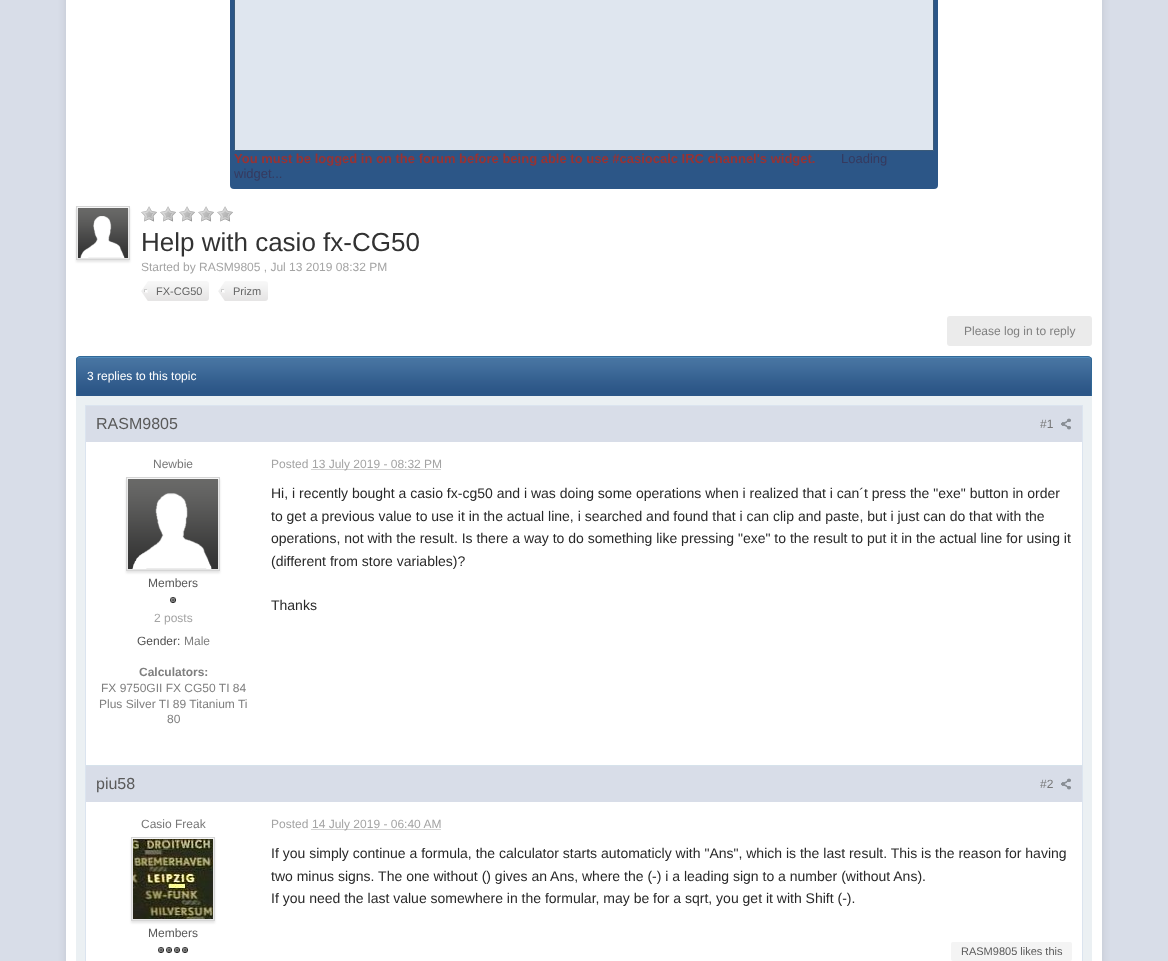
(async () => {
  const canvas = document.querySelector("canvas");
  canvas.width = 1168;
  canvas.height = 961;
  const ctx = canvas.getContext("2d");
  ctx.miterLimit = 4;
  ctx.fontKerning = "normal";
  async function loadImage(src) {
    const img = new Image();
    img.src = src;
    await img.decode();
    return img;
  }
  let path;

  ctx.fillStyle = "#d8dde8";
  ctx.fillRect(0, 0, 1168, 961);
  ctx.fillStyle = "rgba(0, 0, 0, 0.1)";
  ctx.filter = "blur(4.5px)";
  ctx.beginPath();
  ctx.rect(66, -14, 1036, 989);
  ctx.fill();
  ctx.filter = "none";
  ctx.fillStyle = "#ffffff";
  ctx.fillRect(66, 0, 1036, 961);
  ctx.fillStyle = "#2c5687";
  ctx.beginPath();
  ctx.roundRect(230, -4, 708, 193, 4);
  ctx.fill();
  ctx.fillStyle = "#dfe6ef";
  ctx.beginPath();
  ctx.rect(234.5, -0.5, 699, 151);
  ctx.fill();
  ctx.strokeStyle = "#3b5a78";
  ctx.stroke();
  ctx.fillStyle = "rgba(0, 0, 0, 0.1)";
  ctx.filter = "blur(1px)";
  ctx.beginPath();
  ctx.rect(76, 208, 54, 54);
  ctx.fill();
  ctx.filter = "none";
  ctx.strokeStyle = "#d5d5d5";
  ctx.strokeRect(76.5, 206.5, 53, 53);
  ctx.drawImage(await loadImage("img/1.png"), 78, 208, 50, 50);
  ctx.drawImage(await loadImage("img/2.png"), 141, 206, 16, 16);
  ctx.drawImage(await loadImage("img/2.png"), 160, 206, 16, 16);
  ctx.drawImage(await loadImage("img/2.png"), 179, 206, 16, 16);
  ctx.drawImage(await loadImage("img/2.png"), 198, 206, 16, 16);
  ctx.drawImage(await loadImage("img/2.png"), 217, 206, 16, 16);
  ctx.drawImage(await loadImage("img/3.png"), 141, 281, 68, 20);
  ctx.drawImage(await loadImage("img/4.png"), 218, 281, 50, 20);
  ctx.fillStyle = "#ebebeb";
  ctx.beginPath();
  ctx.roundRect(947, 316, 145, 30, 3);
  ctx.fill();
  ctx.fillStyle = "#2c5687";
  ctx.fillRect(77, 392, 1014, 4);
  ctx.drawImage(await loadImage("img/5.png"), 76, 357, 1016, 35);
  ctx.fillStyle = "#528cbc";
  path = new Path2D("M80 358H1088C1090 358 1091 359 1091 361C1091 359 1090 357 1088 357H80C78 357 77 359 77 361C77 359 78 358 80 358Z");
  ctx.fill(path);
  ctx.fillStyle = "#316897";
  path = new Path2D("M80 356H1088C1090 356 1092 358 1092 360V396H76V360C76 358 78 356 80 356ZM80 357H1088C1090 357 1091 358 1091 360V396H77V360C77 358 78 357 80 357Z");
  ctx.fill(path, "evenodd");
  ctx.fillStyle = "#ebf0f3";
  ctx.fillRect(76, 396, 1016, 565);
  ctx.fillStyle = "#ffffff";
  ctx.fillRect(86, 442, 996, 519);
  ctx.strokeStyle = "#dbe4ef";
  ctx.strokeRect(85.5, 405.5, 997, 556);
  ctx.fillStyle = "#d6e2eb";
  ctx.fillRect(86, 765, 996, 1);
  ctx.fillStyle = "#d8dde8";
  ctx.fillRect(86, 406, 996, 36);
  ctx.drawImage(await loadImage("img/6.png"), 1061, 418, 10, 12);
  ctx.fillStyle = "rgba(0, 0, 0, 0.1)";
  ctx.filter = "blur(1px)";
  ctx.beginPath();
  ctx.rect(126, 479, 94, 94);
  ctx.fill();
  ctx.filter = "none";
  ctx.strokeStyle = "#d5d5d5";
  ctx.strokeRect(126.5, 477.5, 93, 93);
  ctx.drawImage(await loadImage("img/7.png"), 128, 479, 90, 90);
  ctx.drawImage(await loadImage("img/8.png"), 170, 597, 6, 6);
  path = new Path2D("M311.5 469.5H441.5");
  ctx.strokeStyle = "#a4a4a4";
  ctx.setLineDash([1, 1]);
  ctx.stroke(path);
  ctx.fillStyle = "#d8dde8";
  ctx.fillRect(86, 766, 996, 36);
  ctx.drawImage(await loadImage("img/6.png"), 1061, 778, 10, 12);
  ctx.fillStyle = "rgba(0, 0, 0, 0.1)";
  ctx.filter = "blur(1px)";
  ctx.beginPath();
  ctx.rect(131, 839, 84, 84);
  ctx.fill();
  ctx.filter = "none";
  ctx.strokeStyle = "#d5d5d5";
  ctx.setLineDash([]);
  ctx.strokeRect(131.5, 837.5, 83, 83);
  ctx.drawImage(await loadImage("img/9.png"), 133, 839, 80, 80);
  ctx.drawImage(await loadImage("img/8.png"), 158, 947, 6, 6);
  ctx.drawImage(await loadImage("img/8.png"), 166, 947, 6, 6);
  ctx.drawImage(await loadImage("img/8.png"), 174, 947, 6, 6);
  ctx.drawImage(await loadImage("img/8.png"), 182, 947, 6, 6);
  path = new Path2D("M311.5 829.5H441");
  ctx.strokeStyle = "#a4a4a4";
  ctx.setLineDash([1, 1]);
  ctx.stroke(path);
  ctx.fillStyle = "#f4f4f4";
  ctx.beginPath();
  ctx.roundRect(951, 942, 121, 19, 2);
  ctx.fill();
  ctx.font = "bold 13px Liberation Sans";
  ctx.fillStyle = "#993333";
  ctx.fillText("You must be logged in on the forum before being able to use #casiocalc IRC channel's widget.", 234, 163);
  ctx.font = "13px Liberation Sans";
  ctx.fillStyle = "#363a5f";
  ctx.fillText("Loading", 841, 163);
  ctx.fillText("widget...", 234, 178);
  ctx.font = "26px Liberation Sans";
  ctx.fillStyle = "#323232";
  ctx.fillText("Help with casio fx-CG50", 141, 251);
  ctx.font = "12px Liberation Sans";
  ctx.fillStyle = "#a4a4a4";
  ctx.fillText("Started by RASM9805 , Jul 13 2019 08:32 PM", 141, 271);
  ctx.font = "11px Liberation Sans";
  ctx.fillStyle = "#656565";
  ctx.fillText("FX-CG50", 156, 295);
  ctx.fillText("Prizm", 233, 295);
  ctx.font = "12px Liberation Sans";
  ctx.fillStyle = "#7f7f7f";
  ctx.fillText("Please log in to reply", 964, 335);
  ctx.fillStyle = "#ffffff";
  ctx.fillText("3 replies to this topic", 87, 380);
  ctx.font = "16px Liberation Sans";
  ctx.fillStyle = "#5a5a5a";
  ctx.fillText("RASM9805", 96, 429);
  ctx.font = "12px Liberation Sans";
  ctx.fillStyle = "#777777";
  ctx.fillText("#1", 1040, 428);
  ctx.fillText("Newbie", 153, 468);
  ctx.fillStyle = "#5a5a5a";
  ctx.fillText("Members", 148, 587);
  ctx.fillStyle = "#a4a4a4";
  ctx.fillText("2 posts", 154, 622);
  ctx.fillStyle = "#505050";
  ctx.fillText("Gender:", 137, 645);
  ctx.fillStyle = "#7f7f7f";
  ctx.fillText("Male", 184, 645);
  ctx.font = "bold 12px Liberation Sans";
  ctx.fillText("Calculators:", 139, 676);
  ctx.font = "12px Liberation Sans";
  for (const [text, x, y] of [
    ["FX 9750GII FX CG50 TI 84", 101, 692],
    ["Plus Silver TI 89 Titanium Ti", 99, 708],
    ["80", 167, 723],
  ]) {
    ctx.fillText(text, x, y);
  }
  ctx.fillStyle = "#a4a4a4";
  ctx.fillText("Posted", 271, 468);
  ctx.fillText("13 July 2019 - 08:32 PM", 312, 468);
  ctx.font = "14px Liberation Sans";
  ctx.fillStyle = "#282828";
  for (const [text, x, y] of [
    ["Hi, i recently bought a casio fx-cg50 and i was doing some operations when i realized that i can´t press the \"exe\" button in order", 271, 498],
    ["to get a previous value to use it in the actual line, i searched and found that i can clip and paste, but i just can do that with the", 271, 521],
    ["operations, not with the result. Is there a way to do something like pressing \"exe\" to the result to put it in the actual line for using it", 271, 543],
    ["(different from store variables)?", 271, 566],
    ["Thanks", 271, 610],
  ]) {
    ctx.fillText(text, x, y);
  }
  ctx.font = "16px Liberation Sans";
  ctx.fillStyle = "#5a5a5a";
  ctx.fillText("piu58", 96, 789);
  ctx.font = "12px Liberation Sans";
  ctx.fillStyle = "#777777";
  ctx.fillText("#2", 1040, 788);
  ctx.fillText("Casio Freak", 141, 828);
  ctx.fillStyle = "#5a5a5a";
  ctx.fillText("Members", 148, 937);
  ctx.fillStyle = "#a4a4a4";
  ctx.fillText("Posted", 271, 828);
  ctx.fillText("14 July 2019 - 06:40 AM", 312, 828);
  ctx.font = "14px Liberation Sans";
  ctx.fillStyle = "#282828";
  for (const [text, x, y] of [
    ["If you simply continue a formula, the calculator starts automaticly with \"Ans\", which is the last result. This is the reason for having", 271, 858],
    ["two minus signs. The one without () gives an Ans, where the (-) i a leading sign to a number (without Ans).", 271, 881],
    ["If you need the last value somewhere in the formular, may be for a sqrt, you get it with Shift (-).", 271, 903],
  ]) {
    ctx.fillText(text, x, y);
  }
  ctx.font = "11px Liberation Sans";
  ctx.fillStyle = "#5a5a5a";
  ctx.fillText("RASM9805 likes this", 961, 955);
})();
